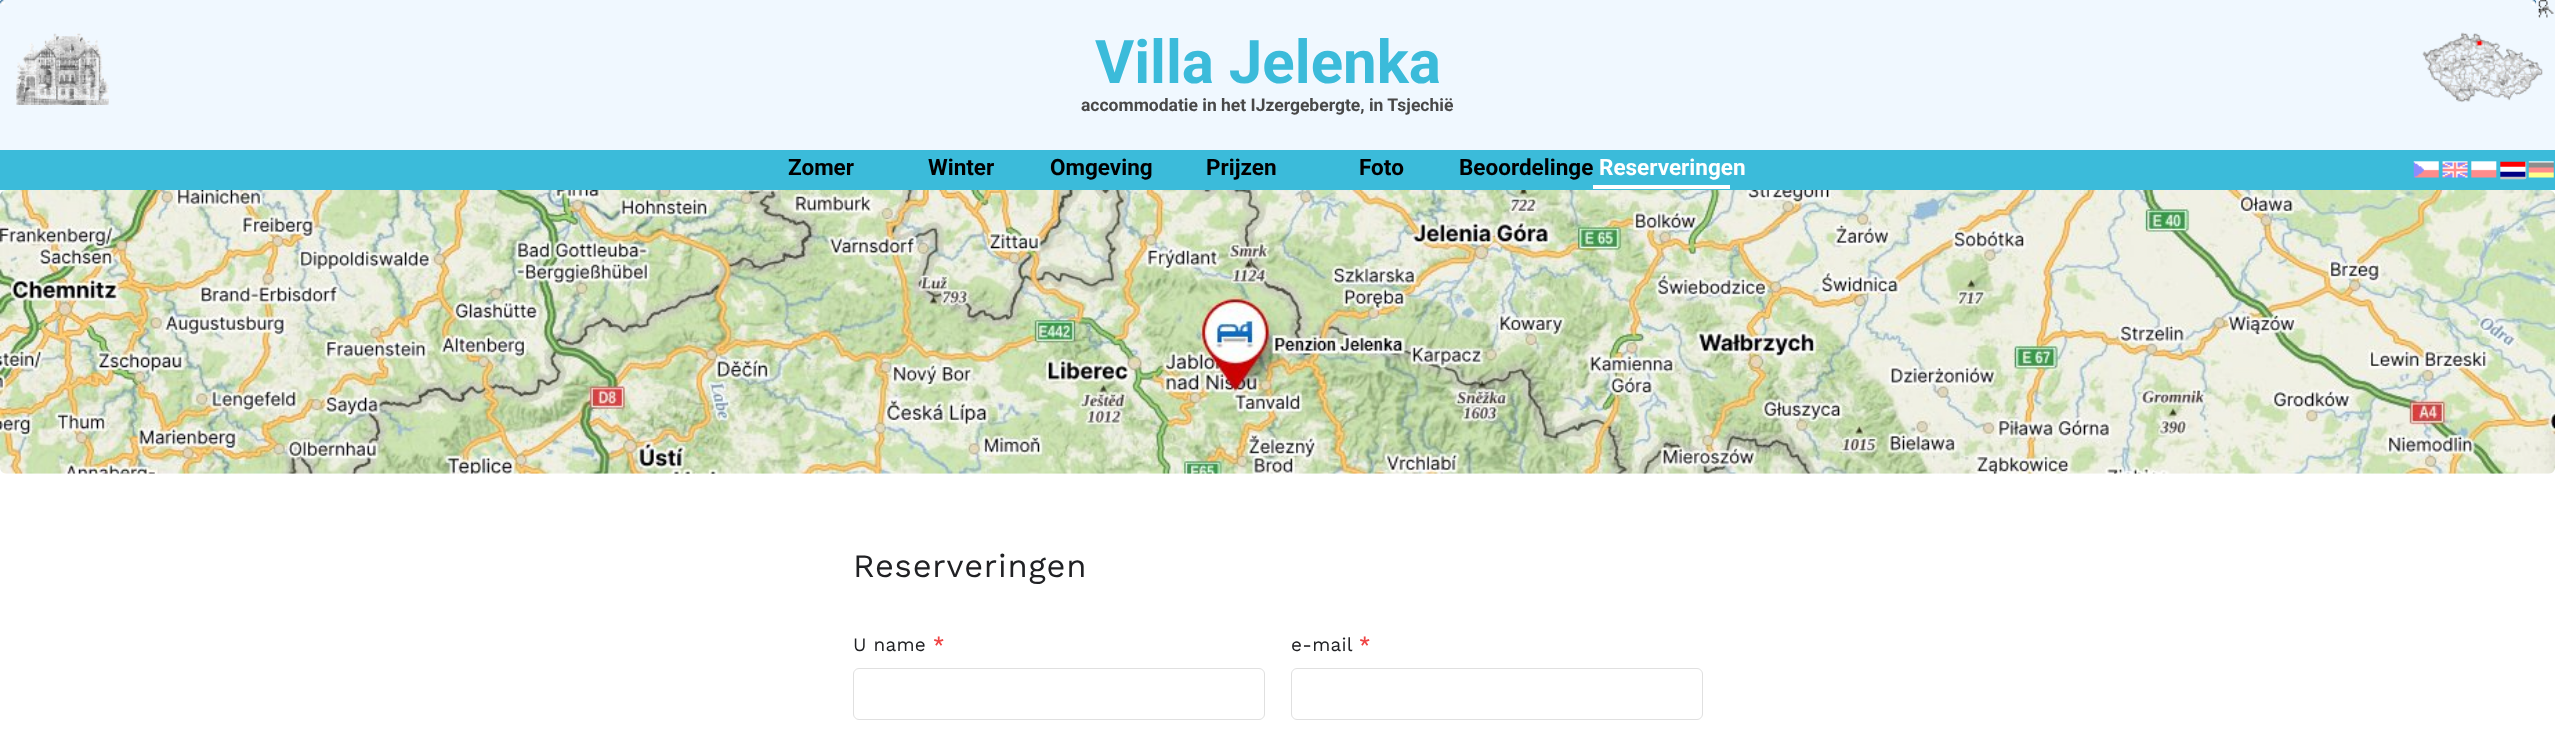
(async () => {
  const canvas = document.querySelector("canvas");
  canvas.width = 2555;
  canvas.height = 748;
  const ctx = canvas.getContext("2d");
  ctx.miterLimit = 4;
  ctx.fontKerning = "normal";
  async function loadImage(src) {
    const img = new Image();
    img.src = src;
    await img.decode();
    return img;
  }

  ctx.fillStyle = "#ffffff";
  ctx.fillRect(0, 0, 2555, 748);
  ctx.fillStyle = "#f0f8ff";
  ctx.fillRect(0, 0, 2555, 150);
  ctx.drawImage(await loadImage("img/1.png"), 2538, 0, 16, 18);
  ctx.drawImage(await loadImage("img/2.png"), 0, 0, 5, 5);
  ctx.drawImage(await loadImage("img/3.png"), 2531, 0, 6, 5);
  ctx.drawImage(await loadImage("img/4.png"), 16, 33, 93, 72);
  ctx.drawImage(await loadImage("img/5.png"), 2422, 32, 121, 71);
  ctx.fillStyle = "#3bbbda";
  ctx.fillRect(0, 150, 2555, 40);
  ctx.fillStyle = "#ffffff";
  ctx.fillRect(1593, 185, 137, 4);
  ctx.drawImage(await loadImage("img/6.png"), 2413, 161, 26, 17);
  ctx.drawImage(await loadImage("img/7.png"), 2442, 161, 26, 17);
  ctx.drawImage(await loadImage("img/8.png"), 2471, 161, 26, 17);
  ctx.drawImage(await loadImage("img/9.png"), 2500, 161, 27, 19);
  ctx.drawImage(await loadImage("img/10.png"), 2526, 161, 28, 17);
  ctx.drawImage(await loadImage("img/11.png"), 0, 190, 2555, 284);
  ctx.beginPath();
  ctx.roundRect(853.5, 668.5, 411, 51, 5.5);
  ctx.strokeStyle = "#e0e0e0";
  ctx.stroke();
  ctx.beginPath();
  ctx.roundRect(1291.5, 668.5, 411, 51, 5.5);
  ctx.stroke();
  ctx.font = "bold 60px Roboto";
  ctx.fillStyle = "#3bbbda";
  ctx.fillText("Villa Jelenka", 1095, 83);
  ctx.font = "bold 17.5px Roboto";
  ctx.fillStyle = "#484848";
  ctx.fillText("accommodatie in het IJzergebergte, in Tsjechië", 1081, 111);
  ctx.font = "bold 22.5px Roboto";
  ctx.fillStyle = "#000000";
  for (const [text, x, y] of [
    ["Zomer", 788, 175],
    ["Winter", 928, 175],
    ["Omgeving", 1050, 175],
    ["Prijzen", 1206, 175],
    ["Foto", 1359, 175],
    ["Beoordelinge", 1459, 175],
  ]) {
    ctx.fillText(text, x, y);
  }
  ctx.fillStyle = "#ffffff";
  ctx.fillText("Reserveringen", 1599, 175);
  ctx.letterSpacing = "0.75px";
  ctx.font = "32.75px Work Sans";
  ctx.fillStyle = "#202124";
  ctx.fillText("Reserveringen", 853, 577);
  ctx.letterSpacing = "0.25px";
  ctx.font = "19px Work Sans";
  ctx.fillText("U name", 853, 651);
  ctx.font = "bold 19px Work Sans";
  ctx.fillStyle = "#ef4444";
  ctx.fillText("*", 933, 651);
  ctx.font = "19px Work Sans";
  ctx.fillStyle = "#202124";
  ctx.fillText("e-mail", 1291, 651);
  ctx.font = "bold 19px Work Sans";
  ctx.fillStyle = "#ef4444";
  ctx.fillText("*", 1359, 651);
})();
